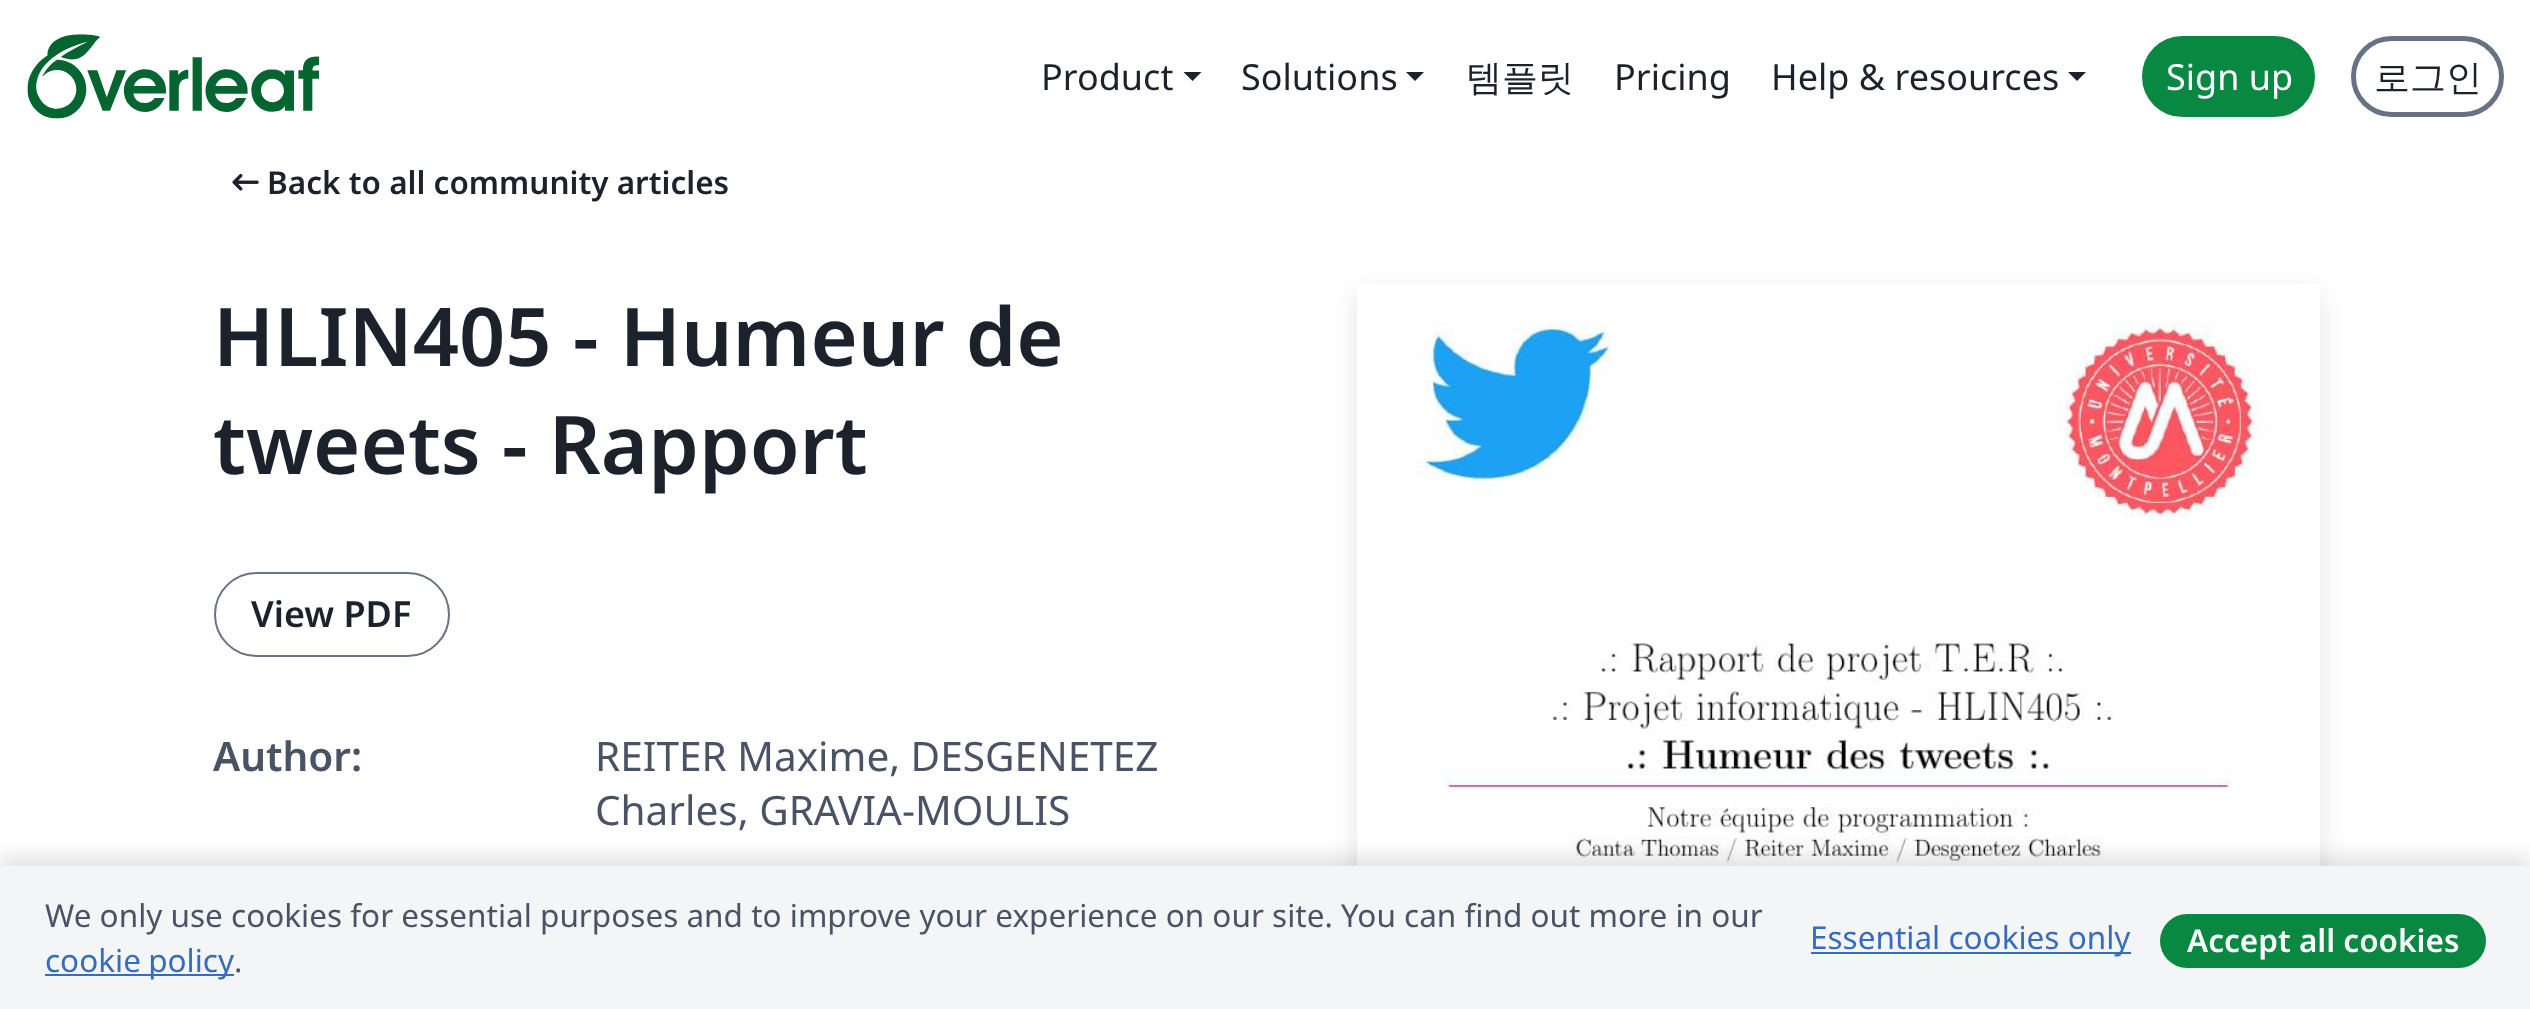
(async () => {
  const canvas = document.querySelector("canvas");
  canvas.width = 2530;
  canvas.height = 1009;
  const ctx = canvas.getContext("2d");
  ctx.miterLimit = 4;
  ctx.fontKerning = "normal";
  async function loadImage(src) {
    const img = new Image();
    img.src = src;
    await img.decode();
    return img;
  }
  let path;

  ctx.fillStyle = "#ffffff";
  ctx.fillRect(0, 0, 2530, 1009);
  ctx.drawImage(await loadImage("img/1.png"), 27, 34, 293, 85);
  ctx.fillStyle = "#1b222c";
  path = new Path2D("M1183.5 72H1201.5L1192.5 81Z");
  ctx.fill(path);
  path = new Path2D("M1406 72H1424L1415 81Z");
  ctx.fill(path);
  path = new Path2D("M2068 72H2086L2077 81Z");
  ctx.fill(path);
  ctx.fillStyle = "#098842";
  ctx.beginPath();
  ctx.roundRect(2144.5, 38.5, 168, 76, 38);
  ctx.fill();
  ctx.strokeStyle = "#098842";
  ctx.lineWidth = 5;
  ctx.stroke();
  ctx.beginPath();
  ctx.roundRect(2353.5, 38.5, 148, 76, 38);
  ctx.strokeStyle = "#677283";
  ctx.stroke();
  ctx.drawImage(await loadImage("img/2.png"), 232, 173, 27, 18);
  ctx.beginPath();
  ctx.roundRect(215, 573, 234, 83, 41.5);
  ctx.lineWidth = 2;
  ctx.stroke();
  ctx.save();
  path = new Path2D("M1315 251H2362V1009H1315ZM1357 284H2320V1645H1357Z");
  ctx.clip(path, "evenodd");
  ctx.fillStyle = "rgba(30, 37, 48, 0.12)";
  ctx.filter = "blur(13.5px)";
  ctx.beginPath();
  ctx.rect(1357, 293, 963, 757);
  ctx.fill();
  ctx.filter = "none";
  ctx.restore();
  ctx.drawImage(await loadImage("img/3.png"), 1414, 306, 906, 560);
  ctx.fillStyle = "rgba(0, 0, 0, 0.1)";
  ctx.filter = "blur(9px)";
  ctx.beginPath();
  ctx.rect(0, 855, 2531, 144);
  ctx.fill();
  ctx.filter = "none";
  for (const [x, y, w, h, color] of [
    [0, 866, 2530, 143, "#f4f5f6"],
    [45, 974, 189, 2, "#366cbf"],
    [1811, 952, 320, 2, "#366cbf"],
  ]) {
    ctx.fillStyle = color;
    ctx.fillRect(x, y, w, h);
  }
  ctx.fillStyle = "#098842";
  ctx.beginPath();
  ctx.roundRect(2160, 914, 326, 54, 27);
  ctx.fill();
  ctx.font = "36px Noto Sans";
  ctx.fillStyle = "#1b222c";
  ctx.fillText("Product", 1041, 90);
  ctx.fillText("Solutions", 1241, 90);
  ctx.font = "500 36px WenQuanYi Zen Hei";
  ctx.fillText("템플릿", 1466, 90);
  ctx.font = "36px Noto Sans";
  ctx.fillText("Pricing", 1614, 90);
  ctx.fillText("Help & resources", 1771, 90);
  ctx.fillStyle = "#ffffff";
  ctx.fillText("Sign up", 2166, 90);
  ctx.font = "500 36px WenQuanYi Zen Hei";
  ctx.fillStyle = "#1b222c";
  ctx.fillText("로그인", 2374, 90);
  ctx.font = "600 31.5px Noto Sans";
  ctx.fillText("Back to all community articles", 267, 194);
  ctx.font = "600 81px Noto Sans";
  ctx.fillText("HLIN405 - Humeur de", 213, 366);
  ctx.fillText("tweets - Rapport", 213, 474);
  ctx.font = "600 36px Noto Sans";
  ctx.fillText("View PDF", 251, 627);
  ctx.font = "600 40.5px Noto Sans";
  ctx.fillStyle = "#495365";
  ctx.fillText("Author:", 213, 771);
  ctx.font = "40.5px Noto Sans";
  ctx.fillText("REITER Maxime, DESGENETEZ", 595, 771);
  ctx.fillText("Charles, GRAVIA-MOULIS", 595, 825);
  ctx.font = "31.5px Noto Sans";
  ctx.fillText("We only use cookies for essential purposes and to improve your experience on our site. You can find out more in our", 45, 927);
  ctx.wordSpacing = "-1px";
  ctx.fillStyle = "#366cbf";
  ctx.fillText("cookie policy", 45, 972);
  ctx.wordSpacing = "0px";
  ctx.fillStyle = "#495365";
  ctx.fillText(".", 234, 972);
  ctx.fillStyle = "#366cbf";
  ctx.fillText("Essential cookies only", 1810, 949);
  ctx.font = "600 31.5px Noto Sans";
  ctx.fillStyle = "#ffffff";
  ctx.fillText("Accept all cookies", 2187, 952);
})();
